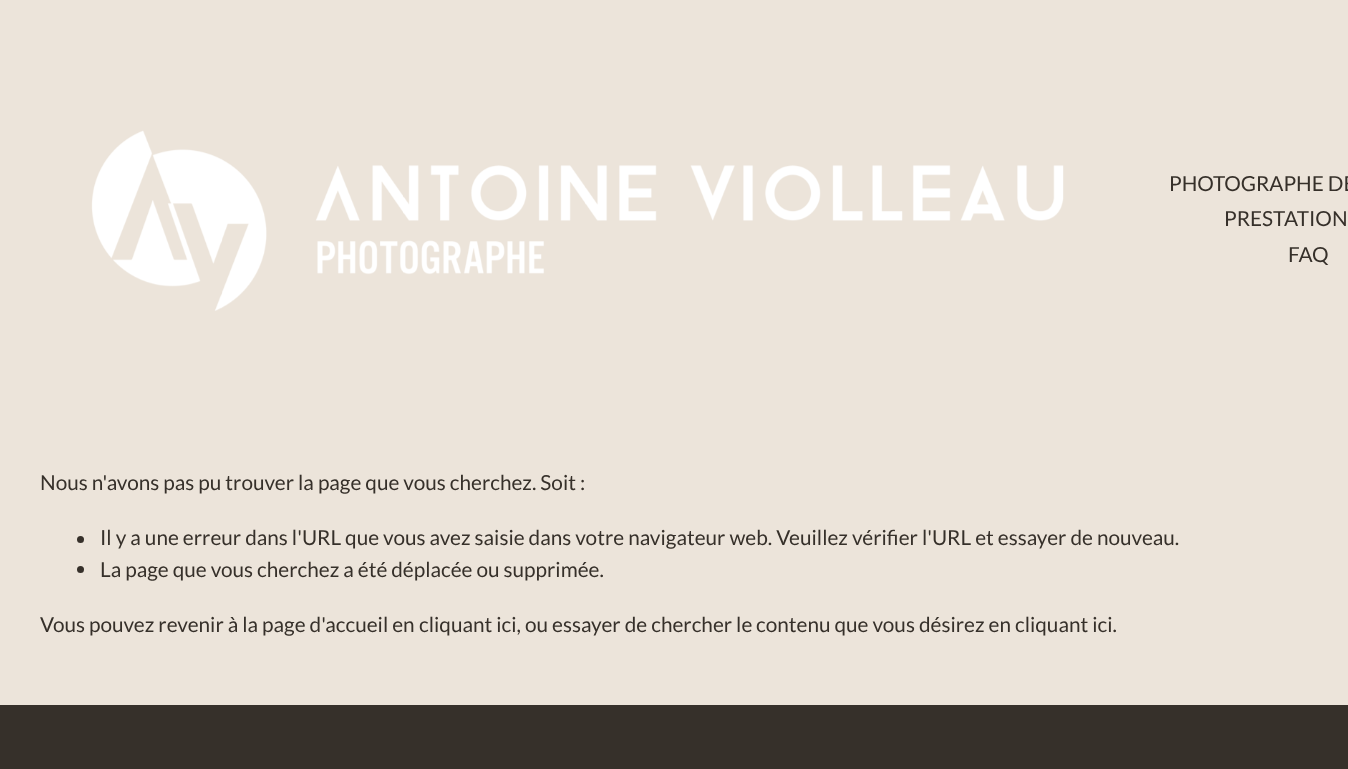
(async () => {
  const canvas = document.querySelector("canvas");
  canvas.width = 1348;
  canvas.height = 769;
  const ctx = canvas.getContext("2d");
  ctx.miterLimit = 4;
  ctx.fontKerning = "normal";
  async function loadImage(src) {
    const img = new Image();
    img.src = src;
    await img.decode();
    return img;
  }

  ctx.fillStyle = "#ece4da";
  ctx.fillRect(0, 0, 1348, 769);
  ctx.drawImage(await loadImage("img/1.png"), 91, 130, 973, 181);
  ctx.fillStyle = "#36302a";
  ctx.beginPath();
  ctx.arc(80.5, 539.5, 3.5, 0, Math.PI * 2);
  ctx.fill();
  ctx.beginPath();
  ctx.arc(80.5, 569.5, 3.5, 0, Math.PI * 2);
  ctx.fill();
  ctx.fillRect(0, 705, 1348, 64);
  ctx.font = "20.75px Lato";
  for (const [text, x, y] of [
    ["PHOTOGRAPHE DE", 1169, 191],
    ["PRESTATION", 1224, 226],
    ["FAQ", 1288, 262],
    ["Nous n'avons pas pu trouver la page que vous cherchez. Soit :", 40, 490],
    ["Il y a une erreur dans l'URL que vous avez saisie dans votre navigateur web. Veuillez vérifier l'URL et essayer de nouveau.", 100, 545],
    ["La page que vous cherchez a été déplacée ou supprimée.", 100, 577],
    ["Vous pouvez revenir à la page d'accueil en", 40, 632],
    ["cliquant ici, ou essayer de chercher le", 419, 632],
    ["contenu que vous désirez en cliquant ici.", 756, 632],
  ]) {
    ctx.fillText(text, x, y);
  }
})();
